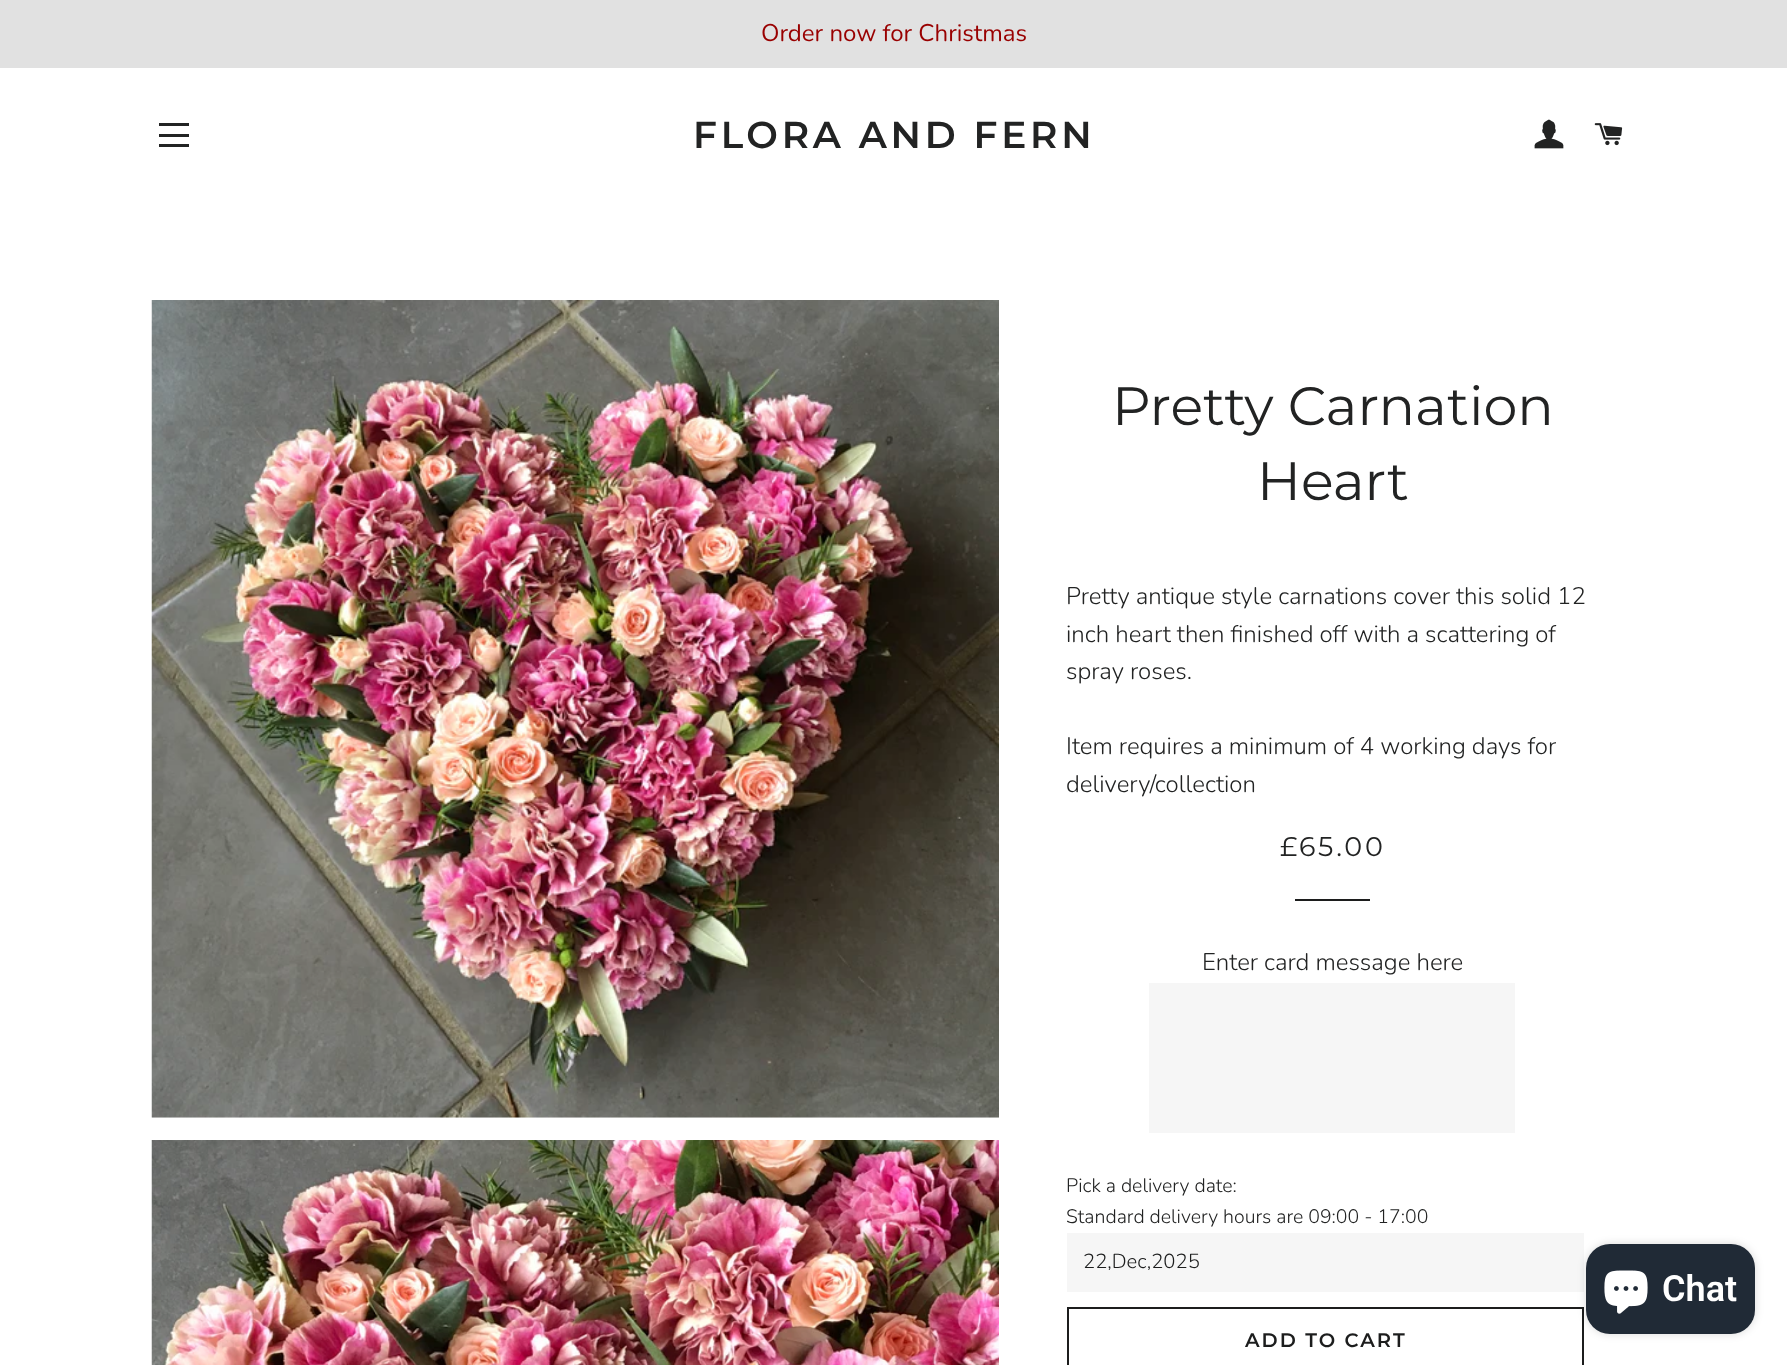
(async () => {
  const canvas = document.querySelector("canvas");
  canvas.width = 1787;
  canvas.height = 1365;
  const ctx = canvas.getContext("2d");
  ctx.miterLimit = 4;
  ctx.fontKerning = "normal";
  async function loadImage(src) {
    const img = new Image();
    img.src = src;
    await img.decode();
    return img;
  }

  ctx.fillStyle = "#ffffff";
  ctx.fillRect(0, 0, 1787, 1365);
  for (const [x, y, w, h, color] of [
    [0, 0, 1787, 68, "#e1e1e1"],
    [159, 123, 30, 3, "#222323"],
    [159, 134, 30, 3, "#222323"],
    [159, 144, 30, 3, "#222323"],
  ]) {
    ctx.fillStyle = color;
    ctx.fillRect(x, y, w, h);
  }
  ctx.drawImage(await loadImage("img/1.png"), 1534, 119, 30, 30);
  ctx.drawImage(await loadImage("img/2.png"), 1594, 123, 29, 23);
  ctx.fillStyle = "#f7f7f7";
  ctx.fillRect(152, 1117, 847, 1);
  ctx.drawImage(await loadImage("img/3.png"), 151, 300, 848, 818);
  ctx.drawImage(await loadImage("img/4.png"), 151, 1140, 848, 225);
  for (const [x, y, w, h, color] of [
    [1295, 899, 75, 2, "#1c1d1d"],
    [1149, 983, 366, 150, "#f6f6f6"],
    [1067, 1233, 517, 59, "#f6f6f6"],
  ]) {
    ctx.fillStyle = color;
    ctx.fillRect(x, y, w, h);
  }
  ctx.strokeStyle = "#1c1d1d";
  ctx.lineWidth = 2;
  ctx.strokeRect(1068, 1308, 515, 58);
  ctx.fillStyle = "rgba(0, 0, 0, 0.15)";
  ctx.filter = "blur(4px)";
  ctx.beginPath();
  ctx.roundRect(1586, 1244, 169, 90, 24);
  ctx.fill();
  ctx.filter = "none";
  ctx.fillStyle = "#202a36";
  ctx.beginPath();
  ctx.roundRect(1586, 1244, 169, 90, 24);
  ctx.fill();
  ctx.drawImage(await loadImage("img/5.png"), 1604, 1270, 44, 44);
  ctx.font = "24px Nunito";
  ctx.fillStyle = "#990000";
  ctx.fillText("Order now for Christmas", 761, 41);
  ctx.letterSpacing = "3.75px";
  ctx.font = "600 37.5px Montserrat";
  ctx.fillStyle = "#222323";
  ctx.fillText("FLORA AND FERN", 693, 148);
  ctx.letterSpacing = "0px";
  ctx.font = "54px Montserrat";
  ctx.fillText("Pretty Carnation", 1112, 425);
  ctx.fillText("Heart", 1257, 500);
  ctx.font = "300 24px Nunito";
  for (const [text, x, y] of [
    ["Pretty antique style carnations cover this solid 12", 1066, 604],
    ["inch heart then finished off with a scattering of", 1066, 642],
    ["spray roses.", 1066, 679],
    ["Item requires a minimum of 4 working days for", 1066, 754],
    ["delivery/collection", 1066, 792],
  ]) {
    ctx.fillText(text, x, y);
  }
  ctx.letterSpacing = "2.75px";
  ctx.font = "27px Montserrat";
  ctx.fillText("£65.00", 1280, 856);
  ctx.letterSpacing = "0px";
  ctx.font = "300 24px Nunito";
  ctx.fillText("Enter card message here", 1202, 970);
  ctx.font = "300 19.5px Nunito";
  ctx.fillText("Pick a delivery date:", 1066, 1192);
  ctx.fillText("Standard delivery hours are 09:00 - 17:00", 1066, 1223);
  ctx.font = "300 20.25px Nunito";
  ctx.fillStyle = "#1c1d1d";
  ctx.fillText("22,Dec,2025", 1083, 1268);
  ctx.letterSpacing = "2px";
  ctx.font = "600 19.5px Montserrat";
  ctx.fillText("ADD TO CART", 1245, 1347);
  ctx.letterSpacing = "0px";
  ctx.font = "600 36px Roboto";
  ctx.fillStyle = "#ffffff";
  ctx.fillText("Chat", 1662, 1301);
})();
